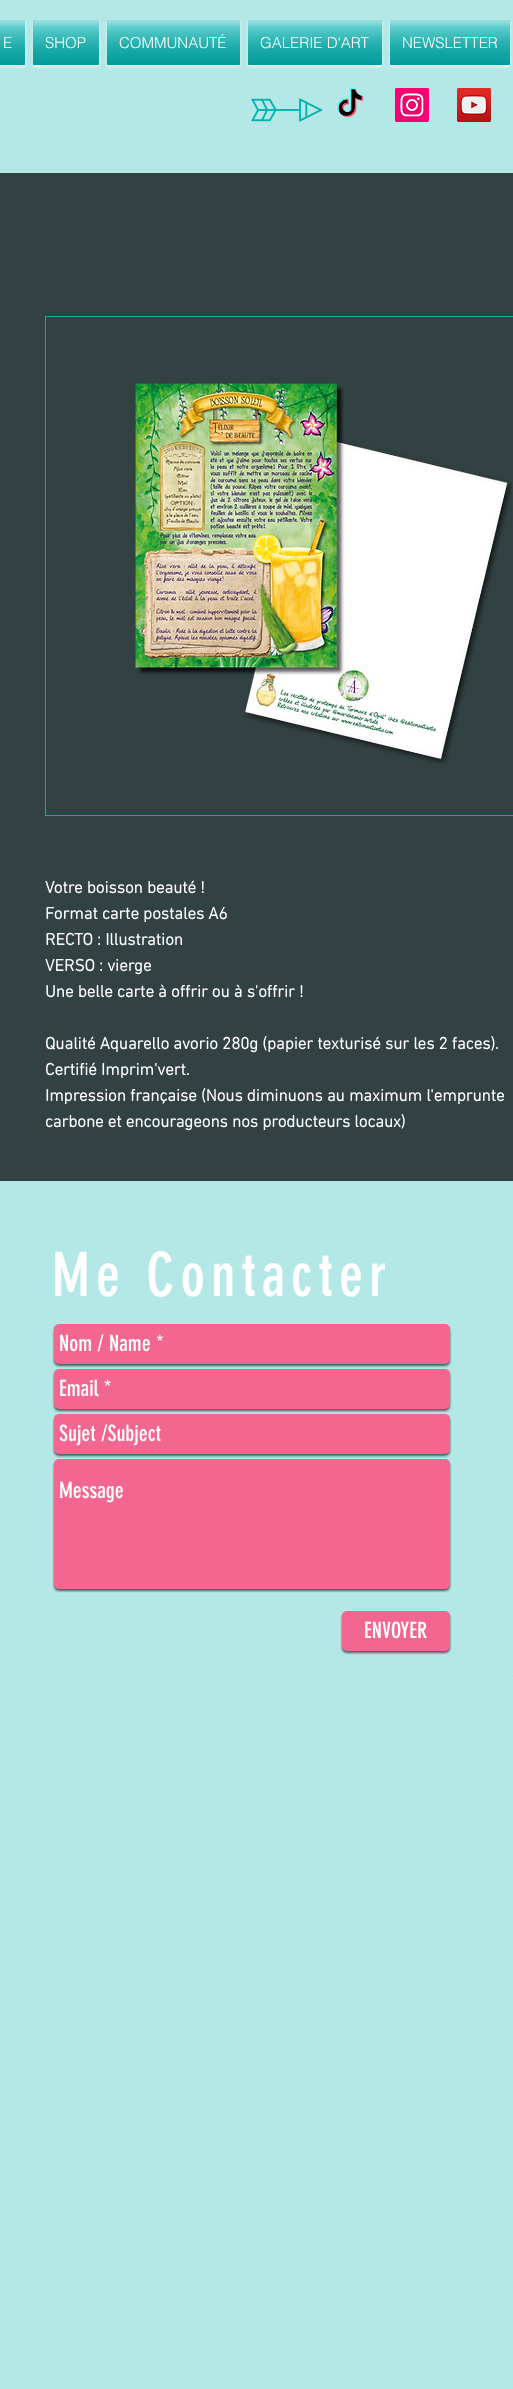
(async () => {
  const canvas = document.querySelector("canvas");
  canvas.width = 513;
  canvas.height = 2389;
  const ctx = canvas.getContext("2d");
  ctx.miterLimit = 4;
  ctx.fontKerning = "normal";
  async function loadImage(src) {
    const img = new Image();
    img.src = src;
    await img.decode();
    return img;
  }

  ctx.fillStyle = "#b4e8e7";
  ctx.fillRect(0, 0, 513, 2389);
  ctx.fillStyle = "rgba(255, 255, 255, 0.6)";
  ctx.filter = "blur(1.5px)";
  ctx.beginPath();
  ctx.roundRect(-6, 22, 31, 45, 1);
  ctx.fill();
  ctx.filter = "none";
  ctx.fillStyle = "#01b1af";
  ctx.beginPath();
  ctx.roundRect(-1, 20, 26, 45, 1);
  ctx.fill();
  ctx.drawImage(await loadImage("img/1.png"), 0, 20, 25, 45);
  ctx.drawImage(await loadImage("img/2.png"), 0, 31, 25, 34);
  ctx.fillStyle = "rgba(255, 255, 255, 0.6)";
  ctx.filter = "blur(1.5px)";
  ctx.beginPath();
  ctx.roundRect(33, 22, 66, 45, 1);
  ctx.fill();
  ctx.filter = "none";
  ctx.fillStyle = "#01b1af";
  ctx.beginPath();
  ctx.roundRect(33, 20, 66, 45, 1);
  ctx.fill();
  ctx.drawImage(await loadImage("img/3.png"), 33, 20, 66, 45);
  ctx.drawImage(await loadImage("img/4.png"), 33, 31, 66, 34);
  ctx.fillStyle = "rgba(255, 255, 255, 0.6)";
  ctx.filter = "blur(1.5px)";
  ctx.beginPath();
  ctx.roundRect(107, 22, 133, 45, 1);
  ctx.fill();
  ctx.filter = "none";
  ctx.fillStyle = "#01b1af";
  ctx.beginPath();
  ctx.roundRect(107, 20, 133, 45, 1);
  ctx.fill();
  ctx.drawImage(await loadImage("img/5.png"), 107, 20, 133, 45);
  ctx.drawImage(await loadImage("img/6.png"), 107, 31, 133, 34);
  ctx.fillStyle = "rgba(255, 255, 255, 0.6)";
  ctx.filter = "blur(1.5px)";
  ctx.beginPath();
  ctx.roundRect(248, 22, 134, 45, 1);
  ctx.fill();
  ctx.filter = "none";
  ctx.fillStyle = "#01b1af";
  ctx.beginPath();
  ctx.roundRect(248, 20, 134, 45, 1);
  ctx.fill();
  ctx.drawImage(await loadImage("img/7.png"), 248, 20, 134, 45);
  ctx.drawImage(await loadImage("img/8.png"), 248, 31, 134, 34);
  ctx.fillStyle = "rgba(255, 255, 255, 0.6)";
  ctx.filter = "blur(1.5px)";
  ctx.beginPath();
  ctx.roundRect(390, 22, 120, 45, 1);
  ctx.fill();
  ctx.filter = "none";
  ctx.fillStyle = "#01b1af";
  ctx.beginPath();
  ctx.roundRect(390, 20, 120, 45, 1);
  ctx.fill();
  ctx.drawImage(await loadImage("img/9.png"), 390, 20, 120, 45);
  ctx.drawImage(await loadImage("img/10.png"), 390, 31, 120, 34);
  ctx.drawImage(await loadImage("img/11.png"), 251, 98, 72, 24);
  ctx.drawImage(await loadImage("img/12.png"), 337, 88, 26, 30);
  ctx.drawImage(await loadImage("img/13.png"), 395, 88, 34, 34);
  ctx.drawImage(await loadImage("img/14.png"), 457, 88, 34, 34);
  ctx.fillStyle = "#324141";
  ctx.fillRect(0, 173, 513, 1008);
  ctx.strokeStyle = "#01b1af";
  ctx.strokeRect(45.5, 316.5, 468, 499);
  ctx.drawImage(await loadImage("img/15.png"), 135, 383, 377, 381);
  ctx.fillStyle = "rgba(0, 0, 0, 0.6)";
  ctx.filter = "blur(1px)";
  ctx.beginPath();
  ctx.roundRect(54, 1326, 396, 40, 5);
  ctx.fill();
  ctx.filter = "none";
  ctx.fillStyle = "#f2668f";
  ctx.beginPath();
  ctx.roundRect(54, 1324, 396, 40, 5);
  ctx.fill();
  ctx.fillStyle = "rgba(0, 0, 0, 0.6)";
  ctx.filter = "blur(1px)";
  ctx.beginPath();
  ctx.roundRect(54, 1371, 396, 40, 5);
  ctx.fill();
  ctx.filter = "none";
  ctx.fillStyle = "#f2668f";
  ctx.beginPath();
  ctx.roundRect(54, 1369, 396, 40, 5);
  ctx.fill();
  ctx.fillStyle = "rgba(0, 0, 0, 0.6)";
  ctx.filter = "blur(1px)";
  ctx.beginPath();
  ctx.roundRect(54, 1416, 396, 40, 5);
  ctx.fill();
  ctx.filter = "none";
  ctx.fillStyle = "#f2668f";
  ctx.beginPath();
  ctx.roundRect(54, 1414, 396, 40, 5);
  ctx.fill();
  ctx.fillStyle = "rgba(0, 0, 0, 0.6)";
  ctx.filter = "blur(1px)";
  ctx.beginPath();
  ctx.roundRect(54, 1461, 396, 130, 5);
  ctx.fill();
  ctx.filter = "none";
  ctx.fillStyle = "#f2668f";
  ctx.beginPath();
  ctx.roundRect(54, 1459, 396, 130, 5);
  ctx.fill();
  ctx.fillStyle = "rgba(0, 0, 0, 0.6)";
  ctx.filter = "blur(1px)";
  ctx.beginPath();
  ctx.roundRect(342, 1613, 108, 40, 5);
  ctx.fill();
  ctx.filter = "none";
  ctx.fillStyle = "#f2668f";
  ctx.beginPath();
  ctx.roundRect(342, 1611, 108, 40, 5);
  ctx.fill();
  ctx.fillStyle = "#b0e3e2";
  ctx.fillRect(512, 1675, 1, 2);
  ctx.font = "300 15px helvetica";
  ctx.fillStyle = "#ffffff";
  for (const [text, x, y] of [
    ["E", 3, 48],
    ["SHOP", 45, 48],
    ["COMMUNAUTÉ", 119, 48],
    ["GALERIE D'ART", 260, 48],
    ["NEWSLETTER", 402, 48],
  ]) {
    ctx.fillText(text, x, y);
  }
  ctx.font = "bold 17px 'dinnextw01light'";
  for (const [text, x, y] of [
    ["Votre boisson beauté !", 45, 893],
    ["Format carte postales A6", 45, 919],
    ["RECTO : Illustration", 45, 945],
    ["VERSO : vierge", 45, 971],
    ["Une belle carte à offrir ou à s'offrir !", 45, 997],
    ["Qualité Aquarello avorio 280g (papier texturisé sur les 2 faces).", 45, 1049],
    ["Certifié Imprim'vert.", 45, 1075],
    ["Impression française (Nous diminuons au maximum l'emprunte", 45, 1101],
    ["carbone et encourageons nos producteurs locaux)", 45, 1127],
  ]) {
    ctx.fillText(text, x, y);
  }
  ctx.letterSpacing = "6px";
  ctx.font = "60px 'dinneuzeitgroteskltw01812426'";
  ctx.fillText("Me Contacter", 52, 1296);
  ctx.letterSpacing = "0px";
  ctx.font = "22px 'dinneuzeitgroteskltw01812426'";
  for (const [text, x, y] of [
    ["Nom / Name *", 59, 1351],
    ["Email *", 59, 1396],
    ["Sujet /Subject", 59, 1441],
    ["Message", 59, 1498],
    ["ENVOYER", 364, 1638],
  ]) {
    ctx.fillText(text, x, y);
  }
})();
